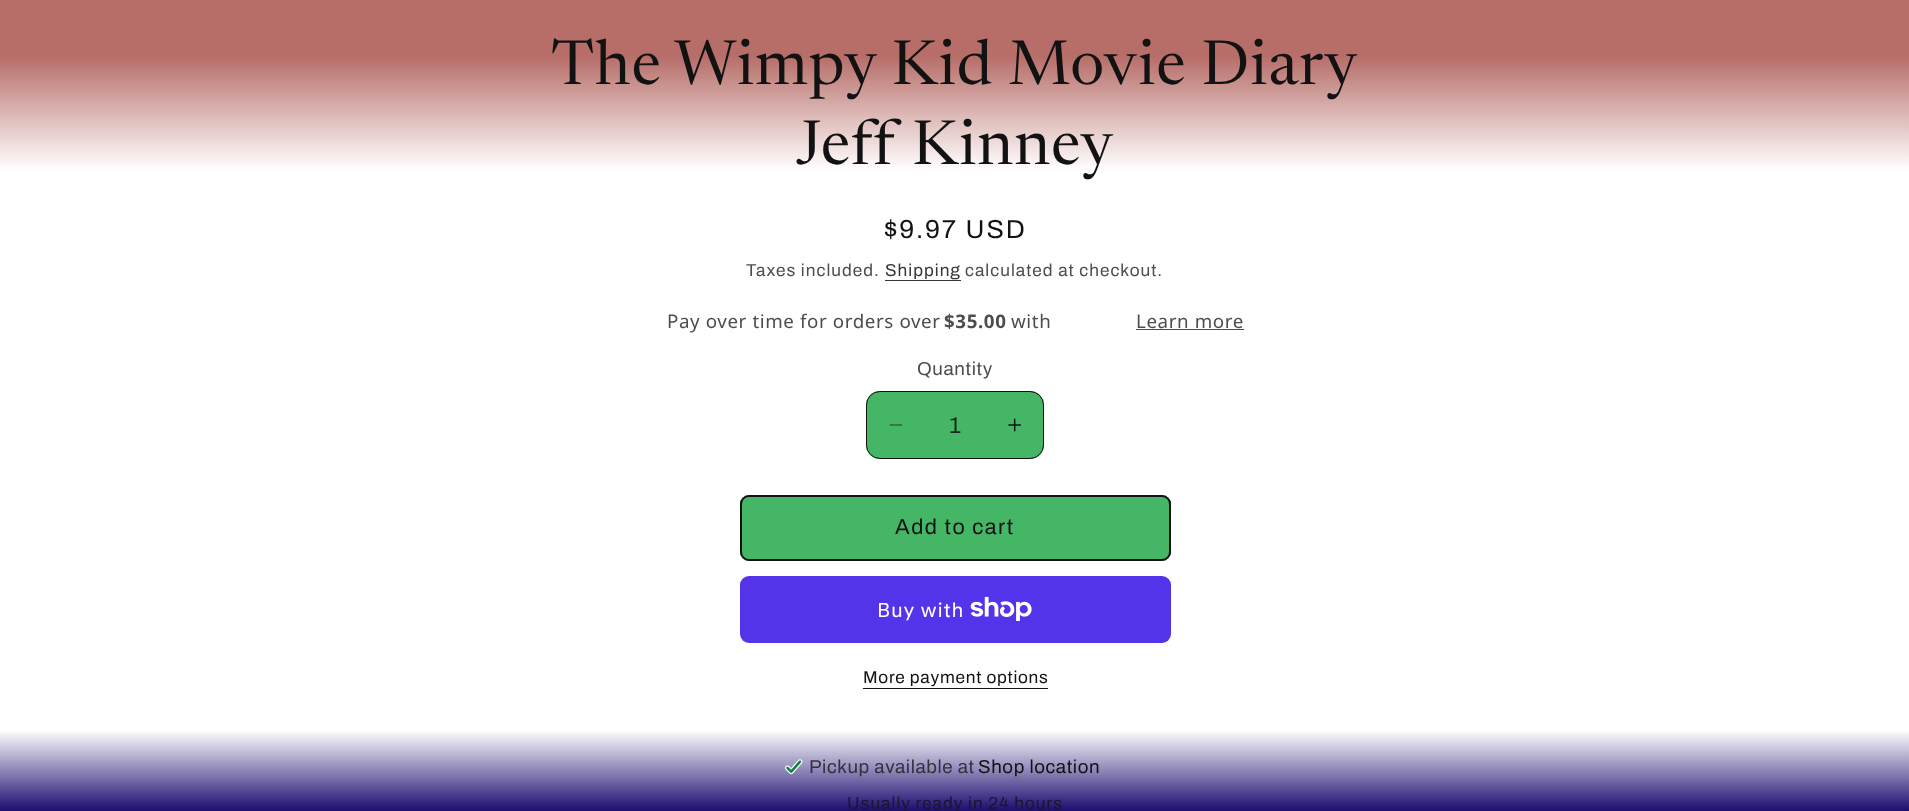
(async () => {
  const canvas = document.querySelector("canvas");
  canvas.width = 1909;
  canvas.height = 811;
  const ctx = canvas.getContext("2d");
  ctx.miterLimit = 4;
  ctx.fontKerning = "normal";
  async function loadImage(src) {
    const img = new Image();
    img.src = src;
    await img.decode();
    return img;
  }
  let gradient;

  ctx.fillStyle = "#ffffff";
  ctx.fillRect(0, 0, 1909, 811);
  gradient = ctx.createLinearGradient(955, 811, 955, 0);
  gradient.addColorStop(0, "#1e0e71");
  gradient.addColorStop(0.1, "#ffffff");
  gradient.addColorStop(0.79, "#ffffff");
  gradient.addColorStop(0.93, "#b76e69");
  ctx.fillStyle = gradient;
  ctx.fillRect(0, 778, 1909, 33);
  gradient = ctx.createLinearGradient(955, 811, 955, 0);
  gradient.addColorStop(0, "rgba(28, 12, 112, 0.99)");
  gradient.addColorStop(0.1, "#ffffff");
  gradient.addColorStop(0.79, "#ffffff");
  gradient.addColorStop(0.93, "#b76e69");
  ctx.fillStyle = gradient;
  ctx.fillRect(0, 0, 1909, 808);
  ctx.fillStyle = "#363636";
  ctx.fillRect(885, 280, 76, 1);
  ctx.fillStyle = "#4d4d4d";
  ctx.fillRect(1136, 329, 108, 1);
  ctx.fillStyle = "#45b665";
  ctx.beginPath();
  ctx.roundRect(866, 391, 178, 68, 14);
  ctx.fill();
  ctx.drawImage(await loadImage("img/1.png"), 889, 424, 14, 2);
  ctx.drawImage(await loadImage("img/2.png"), 1008, 418, 13, 14);
  ctx.beginPath();
  ctx.roundRect(866.5, 391.5, 177, 67, 13.5);
  ctx.strokeStyle = "#121212";
  ctx.stroke();
  ctx.beginPath();
  ctx.roundRect(740, 495, 431, 66, 9);
  ctx.fill();
  ctx.beginPath();
  ctx.roundRect(740.5, 495.5, 430, 65, 8.5);
  ctx.strokeStyle = "#45b665";
  ctx.stroke();
  ctx.beginPath();
  ctx.roundRect(741, 496, 429, 64, 8);
  ctx.strokeStyle = "#121212";
  ctx.lineWidth = 2;
  ctx.stroke();
  ctx.fillStyle = "#5433eb";
  ctx.beginPath();
  ctx.roundRect(740, 576, 431, 67, 9);
  ctx.fill();
  ctx.drawImage(await loadImage("img/3.png"), 970, 596, 62, 25);
  ctx.fillStyle = "#121212";
  ctx.fillRect(863, 688, 185, 1);
  ctx.drawImage(await loadImage("img/4.png"), 785, 759, 18, 16);
  ctx.letterSpacing = "0.9px";
  ctx.font = "62.5px Newsreader";
  ctx.fillText("The Wimpy Kid Movie Diary", 551, 84);
  ctx.fillText("Jeff Kinney", 796, 164);
  ctx.letterSpacing = "1.9px";
  ctx.font = "26px Archivo";
  ctx.fillText("$9.97 USD", 884, 238);
  ctx.letterSpacing = "1px";
  ctx.font = "17.25px Archivo";
  ctx.fillStyle = "#4d4d4d";
  ctx.fillText("Taxes included.", 746, 276);
  ctx.fillStyle = "#363636";
  ctx.fillText("Shipping", 885, 276);
  ctx.fillStyle = "#4d4d4d";
  ctx.fillText("calculated at checkout.", 965, 276);
  ctx.letterSpacing = "0.6px";
  ctx.font = "18.75px Noto Sans";
  ctx.fillText("Pay over time for orders over", 667, 328);
  ctx.font = "bold 18.75px Noto Sans";
  ctx.fillText("$35.00", 944, 328);
  ctx.font = "18.75px Noto Sans";
  ctx.fillText("with", 1011, 328);
  ctx.fillText("Learn more", 1136, 328);
  ctx.font = "18.75px Archivo";
  ctx.fillText("Quantity", 917, 375);
  ctx.letterSpacing = "0px";
  ctx.font = "23px Archivo";
  ctx.fillStyle = "#1a2b1e";
  ctx.fillText("1", 949, 433);
  ctx.letterSpacing = "1.5px";
  ctx.font = "21.5px Archivo";
  ctx.fillStyle = "#121212";
  ctx.fillText("Add to cart", 895, 534);
  ctx.letterSpacing = "0.75px";
  ctx.font = "20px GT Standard";
  ctx.fillStyle = "#ffffff";
  ctx.fillText("Buy with", 877, 617);
  ctx.font = "17.25px Archivo";
  ctx.fillStyle = "#121212";
  ctx.fillText("More payment options", 863, 683);
  ctx.letterSpacing = "0.6px";
  ctx.font = "18.75px Archivo";
  ctx.fillStyle = "#33313d";
  ctx.fillText("Pickup available at", 809, 773);
  ctx.fillStyle = "#121212";
  ctx.fillText("Shop location", 978, 773);
  ctx.letterSpacing = "1px";
  ctx.font = "17.25px Archivo";
  ctx.fillStyle = "#19162d";
  ctx.fillText("Usually ready in 24 hours", 847, 809);
})();
